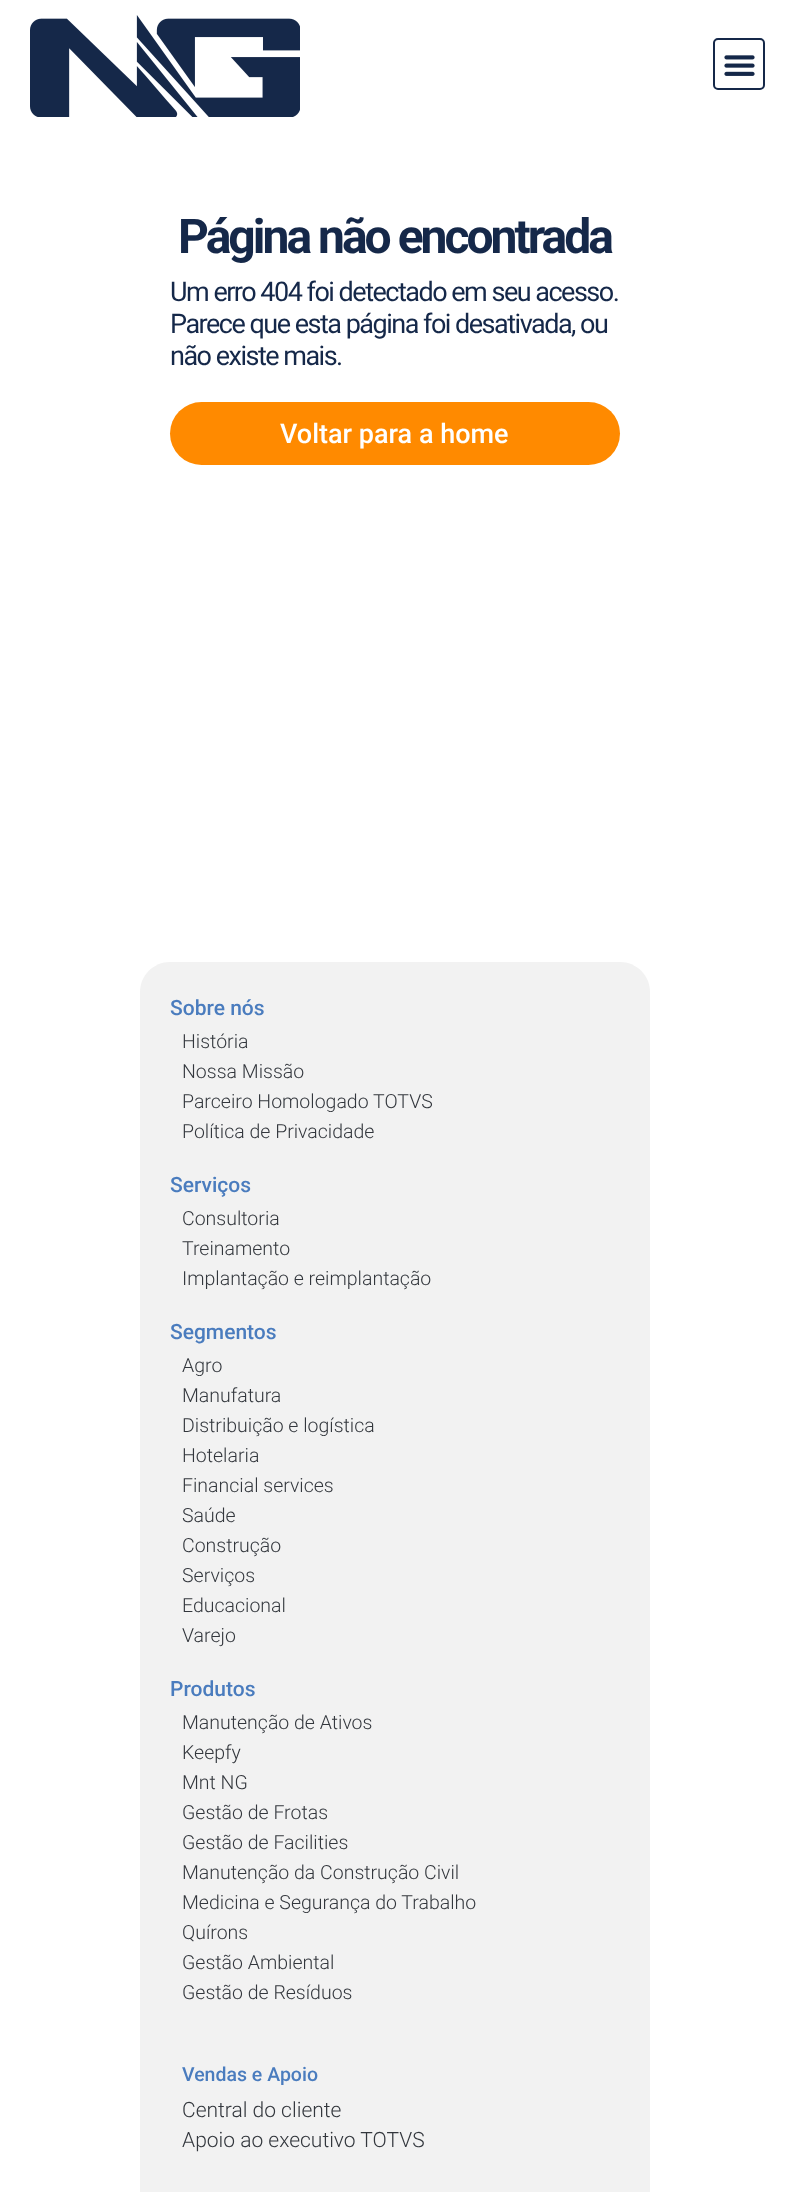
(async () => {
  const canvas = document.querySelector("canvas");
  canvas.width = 789;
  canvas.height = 2192;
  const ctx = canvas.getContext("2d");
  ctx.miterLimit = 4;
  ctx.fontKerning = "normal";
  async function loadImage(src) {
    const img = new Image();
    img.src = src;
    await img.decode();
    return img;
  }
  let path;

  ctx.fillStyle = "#ffffff";
  ctx.fillRect(0, 0, 789, 2192);
  ctx.drawImage(await loadImage("img/1.png"), 30, 15, 270, 102);
  ctx.beginPath();
  ctx.roundRect(714, 39, 50, 50, 4);
  ctx.strokeStyle = "#152849";
  ctx.lineWidth = 2;
  ctx.stroke();
  ctx.drawImage(await loadImage("img/2.png"), 724, 55, 31, 21);
  ctx.fillStyle = "#ff8a00";
  ctx.beginPath();
  ctx.roundRect(170, 402, 450, 63, 31.5);
  ctx.fill();
  ctx.fillStyle = "#f2f2f2";
  path = new Path2D("M170 962H620C636.5 962 650 975.5 650 992V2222H140V992C140 975.5 153.5 962 170 962Z");
  ctx.fill(path);
  ctx.letterSpacing = "-3px";
  ctx.font = "bold 48px Roboto";
  ctx.fillStyle = "#152849";
  ctx.fillText("Página não encontrada", 178, 253);
  ctx.letterSpacing = "-1.5px";
  ctx.font = "27px Roboto";
  for (const [text, x, y] of [
    ["Um erro 404 foi detectado em seu acesso.", 170, 301],
    ["Parece que esta página foi desativada, ou", 170, 333],
    ["não existe mais.", 170, 365],
  ]) {
    ctx.fillText(text, x, y);
  }
  ctx.letterSpacing = "0px";
  ctx.font = "500 27px Roboto";
  ctx.fillStyle = "#ffffff";
  ctx.fillText("Voltar para a home", 280, 443);
  ctx.font = "500 21px Roboto";
  ctx.fillStyle = "#4a7cbe";
  ctx.fillText("Sobre nós", 170, 1015);
  ctx.font = "300 19.5px Roboto";
  ctx.fillStyle = "#33373d";
  for (const [text, x, y] of [
    ["História", 182, 1048],
    ["Nossa Missão", 182, 1078],
    ["Parceiro Homologado TOTVS", 182, 1108],
    ["Política de Privacidade", 182, 1138],
  ]) {
    ctx.fillText(text, x, y);
  }
  ctx.font = "500 21px Roboto";
  ctx.fillStyle = "#4a7cbe";
  ctx.fillText("Serviços", 170, 1192);
  ctx.font = "300 19.5px Roboto";
  ctx.fillStyle = "#33373d";
  for (const [text, x, y] of [
    ["Consultoria", 182, 1225],
    ["Treinamento", 182, 1255],
    ["Implantação e reimplantação", 182, 1285],
  ]) {
    ctx.fillText(text, x, y);
  }
  ctx.font = "500 21px Roboto";
  ctx.fillStyle = "#4a7cbe";
  ctx.fillText("Segmentos", 170, 1339);
  ctx.font = "300 19.5px Roboto";
  ctx.fillStyle = "#33373d";
  for (const [text, x, y] of [
    ["Agro", 182, 1372],
    ["Manufatura", 182, 1402],
    ["Distribuição e logística", 182, 1432],
    ["Hotelaria", 182, 1462],
    ["Financial services", 182, 1492],
    ["Saúde", 182, 1522],
    ["Construção", 182, 1552],
    ["Serviços", 182, 1582],
    ["Educacional", 182, 1612],
    ["Varejo", 182, 1642],
  ]) {
    ctx.fillText(text, x, y);
  }
  ctx.font = "500 21px Roboto";
  ctx.fillStyle = "#4a7cbe";
  ctx.fillText("Produtos", 170, 1696);
  ctx.font = "300 19.5px Roboto";
  ctx.fillStyle = "#33373d";
  for (const [text, x, y] of [
    ["Manutenção de Ativos", 182, 1729],
    ["Keepfy", 182, 1759],
    ["Mnt NG", 182, 1789],
    ["Gestão de Frotas", 182, 1819],
    ["Gestão de Facilities", 182, 1849],
    ["Manutenção da Construção Civil", 182, 1879],
    ["Medicina e Segurança do Trabalho", 182, 1909],
    ["Quírons", 182, 1939],
    ["Gestão Ambiental", 182, 1969],
    ["Gestão de Resíduos", 182, 1999],
  ]) {
    ctx.fillText(text, x, y);
  }
  ctx.font = "500 19.5px Roboto";
  ctx.fillStyle = "#4a7cbe";
  ctx.fillText("Vendas e Apoio", 182, 2081);
  ctx.font = "300 21px Roboto";
  ctx.fillStyle = "#33373d";
  ctx.fillText("Central do cliente", 182, 2117);
  ctx.fillText("Apoio ao executivo TOTVS", 182, 2147);
})();
